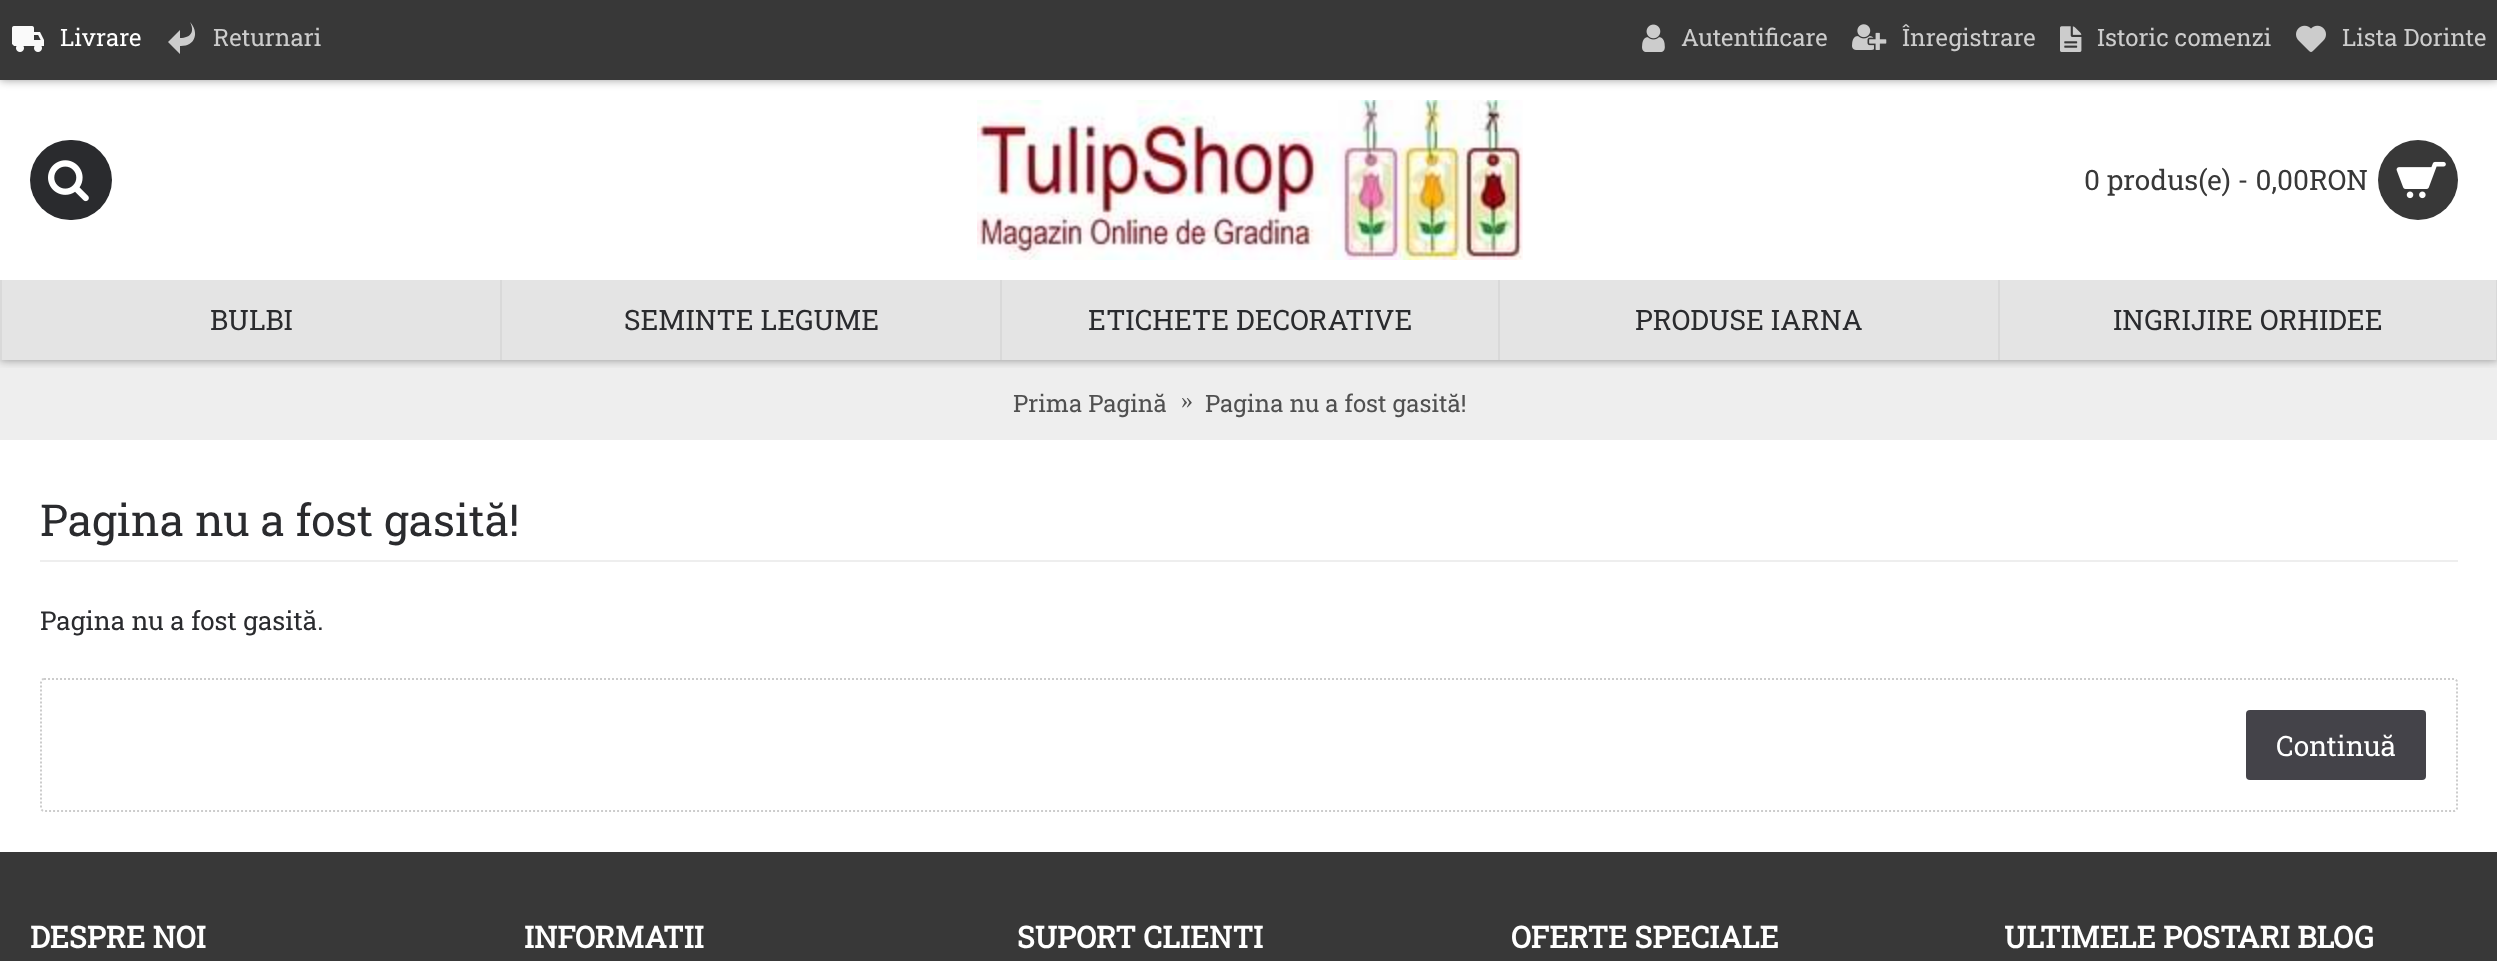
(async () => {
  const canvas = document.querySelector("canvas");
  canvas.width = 2497;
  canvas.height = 961;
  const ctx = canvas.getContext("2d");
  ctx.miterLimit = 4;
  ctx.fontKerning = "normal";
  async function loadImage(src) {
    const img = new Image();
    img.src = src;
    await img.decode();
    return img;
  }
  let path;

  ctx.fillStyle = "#ffffff";
  ctx.fillRect(0, 0, 2497, 961);
  ctx.fillStyle = "#eeeeee";
  ctx.fillRect(0, 360, 2497, 80);
  ctx.save();
  ctx.beginPath();
  ctx.rect(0, 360, 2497, 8);
  ctx.clip();
  ctx.fillStyle = "rgba(0, 0, 0, 0.4)";
  ctx.filter = "blur(5px)";
  ctx.beginPath();
  ctx.rect(0, 0, 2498, 360);
  ctx.fill();
  ctx.filter = "none";
  ctx.restore();
  ctx.fillStyle = "rgba(0, 0, 0, 0.4)";
  ctx.filter = "blur(5px)";
  ctx.beginPath();
  ctx.rect(0, 0, 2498, 80);
  ctx.fill();
  ctx.filter = "none";
  ctx.fillStyle = "#383838";
  ctx.fillRect(0, 0, 2497, 80);
  ctx.drawImage(await loadImage("img/1.png"), 12, 26, 32, 26);
  ctx.fillStyle = "#cccccc";
  path = new Path2D("M180 46V54L168 42L180 30V38C191 38 195 31.5 190 22C199.5 32.5 195.5 46.5 180 46Z");
  ctx.fill(path);
  ctx.drawImage(await loadImage("img/2.png"), 1642, 24, 23, 28);
  ctx.drawImage(await loadImage("img/3.png"), 1852, 24, 35, 26);
  ctx.drawImage(await loadImage("img/4.png"), 2060, 26, 22, 26);
  ctx.drawImage(await loadImage("img/5.png"), 2296, 25, 30, 27);
  ctx.fillStyle = "#2a2b2e";
  ctx.beginPath();
  ctx.roundRect(30, 140, 82, 80, 40);
  ctx.fill();
  ctx.drawImage(await loadImage("img/6.png"), 48, 160, 41, 42);
  ctx.drawImage(await loadImage("img/7.png"), 977, 100, 546, 160);
  ctx.fillStyle = "#383838";
  ctx.beginPath();
  ctx.arc(2418, 180, 40, 0, Math.PI * 2);
  ctx.fill();
  ctx.drawImage(await loadImage("img/8.png"), 2396, 161, 50, 38);
  for (const [x, y, w, h, color] of [
    [2496, 280, 1, 80, "#d9d9d9"],
    [0, 280, 2, 80, "#d9d9d9"],
    [2, 280, 2494, 80, "#e4e4e4"],
    [500, 280, 2, 80, "#d9d9d9"],
    [1000, 280, 2, 80, "#d9d9d9"],
    [1498, 280, 2, 80, "#d9d9d9"],
    [1998, 280, 2, 80, "#d9d9d9"],
    [40, 560, 2418, 2, "#eeeeee"],
  ]) {
    ctx.fillStyle = color;
    ctx.fillRect(x, y, w, h);
  }
  path = new Path2D("M44 679H2454C2455.5 679 2457 680.5 2457 682V808C2457 809.5 2455.5 811 2454 811H44C42.5 811 41 809.5 41 808V682C41 680.5 42.5 679 44 679Z");
  ctx.strokeStyle = "#cccccc";
  ctx.lineWidth = 2;
  ctx.setLineDash([2, 2]);
  ctx.stroke(path);
  ctx.fillStyle = "#444349";
  ctx.beginPath();
  ctx.roundRect(2246, 710, 180, 70, 4);
  ctx.fill();
  ctx.fillStyle = "#383838";
  ctx.fillRect(0, 852, 2497, 109);
  ctx.font = "24px Roboto Slab";
  ctx.fillStyle = "#ffffff";
  ctx.fillText("Livrare", 60, 46);
  ctx.fillStyle = "#cccccc";
  for (const [text, x, y] of [
    ["Returnari", 213, 46],
    ["Autentificare", 1681, 46],
    ["Înregistrare", 1902, 46],
    ["Istoric comenzi", 2097, 46],
    ["Lista Dorinte", 2342, 46],
  ]) {
    ctx.fillText(text, x, y);
  }
  ctx.font = "28px Roboto Slab";
  ctx.fillStyle = "#383838";
  ctx.fillText("0 produs(e) - 0,00RON", 2084, 190);
  ctx.fillStyle = "#2a2b2e";
  for (const [text, x, y] of [
    ["BULBI", 210, 330],
    ["SEMINTE LEGUME", 624, 330],
    ["ETICHETE DECORATIVE", 1088, 330],
    ["PRODUSE IARNA", 1635, 330],
    ["INGRIJIRE ORHIDEE", 2113, 330],
  ]) {
    ctx.fillText(text, x, y);
  }
  ctx.font = "24px Roboto Slab";
  ctx.fillStyle = "#505050";
  ctx.fillText("Prima Pagină", 1013, 412);
  ctx.font = "24px Liberation Serif";
  ctx.fillText("»", 1181, 408);
  ctx.font = "24px Roboto Slab";
  ctx.fillText("Pagina nu a fost gasită!", 1205, 412);
  ctx.font = "44px Roboto Slab";
  ctx.fillStyle = "#2a2b2e";
  ctx.fillText("Pagina nu a fost gasită!", 40, 536);
  ctx.font = "26px Roboto Slab";
  ctx.fillText("Pagina nu a fost gasită.", 40, 630);
  ctx.font = "28px Roboto Slab";
  ctx.fillStyle = "#ffffff";
  ctx.fillText("Continuă", 2276, 756);
  ctx.font = "bold 30px Roboto Slab";
  for (const [text, x, y] of [
    ["DESPRE NOI", 30, 948],
    ["INFORMATII", 524, 948],
    ["SUPORT CLIENTI", 1017, 948],
    ["OFERTE SPECIALE", 1511, 948],
    ["ULTIMELE POSTARI BLOG", 2004, 948],
  ]) {
    ctx.fillText(text, x, y);
  }
})();
